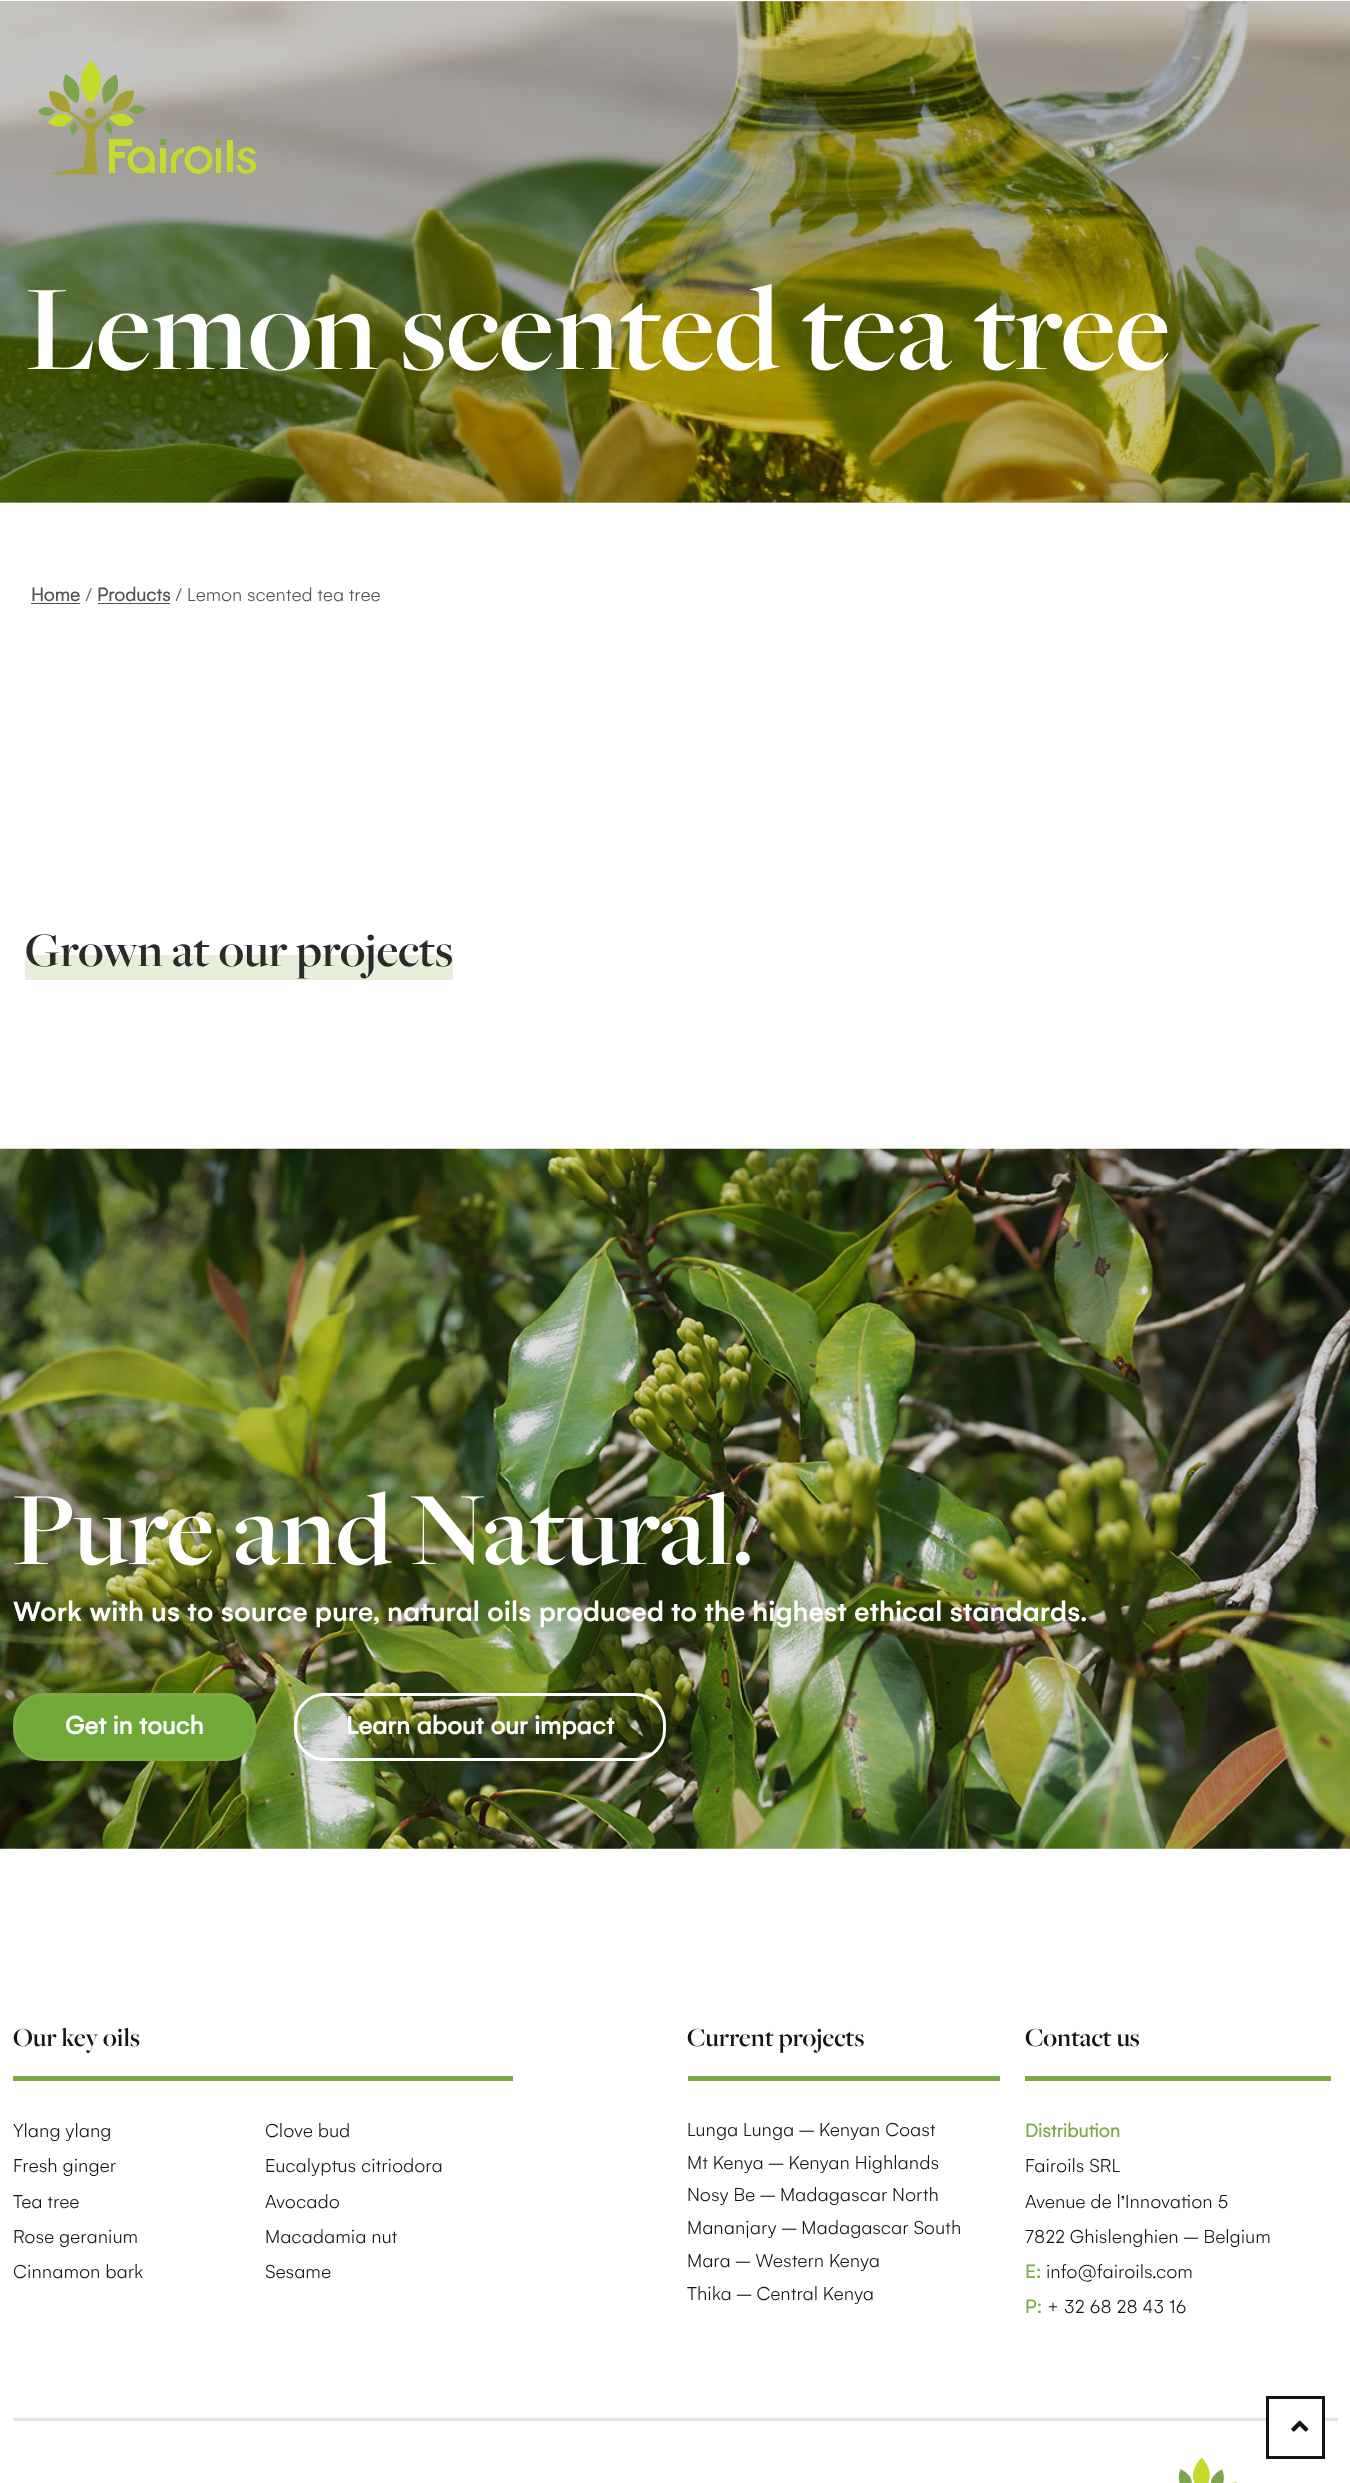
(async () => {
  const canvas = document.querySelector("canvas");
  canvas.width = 1350;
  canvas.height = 2483;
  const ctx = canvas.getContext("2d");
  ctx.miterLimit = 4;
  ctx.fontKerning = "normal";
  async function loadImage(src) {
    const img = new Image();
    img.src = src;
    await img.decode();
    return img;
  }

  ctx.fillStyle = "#ffffff";
  ctx.fillRect(0, 0, 1350, 2483);
  ctx.fillStyle = "#c7c7c7";
  ctx.fillRect(0, 1, 1350, 502);
  ctx.drawImage(await loadImage("img/2.png"), 0, 1, 1350, 502);
  ctx.drawImage(await loadImage("img/1.png"), 38, 60, 218, 114);
  for (const [x, y, w, h, color] of [
    [31, 603, 49, 1, "#525252"],
    [98, 603, 72, 1, "#525252"],
    [25, 955, 428, 25, "#e7eedc"],
  ]) {
    ctx.fillStyle = color;
    ctx.fillRect(x, y, w, h);
  }
  ctx.drawImage(await loadImage("img/3.png"), 0, 1148, 1350, 701);
  ctx.fillStyle = "#70a938";
  ctx.beginPath();
  ctx.roundRect(14.5, 1694.5, 240, 65, 29.5);
  ctx.fill();
  ctx.strokeStyle = "#7ea746";
  ctx.lineWidth = 3;
  ctx.stroke();
  ctx.beginPath();
  ctx.roundRect(295.5, 1694.5, 369, 65, 29.5);
  ctx.strokeStyle = "#ffffff";
  ctx.stroke();
  for (const [x, y, w, h, color] of [
    [13, 2076, 500, 5, "#7ea746"],
    [688, 2076, 312, 5, "#7ea746"],
    [1025, 2076, 306, 5, "#7ea746"],
    [13, 2418, 1325, 3, "#e2e2e2"],
    [1269, 2418, 53, 3, "#ffffff"],
  ]) {
    ctx.fillStyle = color;
    ctx.fillRect(x, y, w, h);
  }
  ctx.strokeStyle = "#141414";
  ctx.strokeRect(1267.5, 2397.5, 56, 60);
  ctx.drawImage(await loadImage("img/4.png"), 1291, 2420, 18, 12);
  ctx.drawImage(await loadImage("img/5.png"), 1178, 2458, 59, 25);
  ctx.font = "600 126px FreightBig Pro";
  ctx.fillText("Lemon scented tea tree", 25, 369);
  ctx.font = "bold 20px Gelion";
  ctx.fillStyle = "#525252";
  ctx.fillText("Home", 31, 601);
  ctx.font = "300 20px Gelion";
  ctx.fillText("/", 85, 601);
  ctx.font = "bold 20px Gelion";
  ctx.fillText("Products", 97, 601);
  ctx.font = "300 20px Gelion";
  ctx.fillText("/ Lemon scented tea tree", 175, 601);
  ctx.font = "600 49.5px FreightBig Pro";
  ctx.fillStyle = "#292a2a";
  ctx.fillText("Grown at our projects", 25, 966);
  ctx.font = "600 108px FreightBig Pro";
  ctx.fillStyle = "#ffffff";
  ctx.fillText("Pure and Natural.", 13, 1564);
  ctx.font = "500 30px Gelion";
  ctx.fillText("Work with us to source pure, natural oils produced to the highest ethical standards.", 13, 1621);
  ctx.font = "bold 27px 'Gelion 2'";
  ctx.fillText("Get in touch", 65, 1734);
  ctx.fillText("Learn about our impact", 346, 1734);
  ctx.font = "600 27px FreightBig Pro";
  ctx.fillStyle = "#141414";
  for (const [text, x, y] of [
    ["Our key oils", 13, 2046],
    ["Current projects", 687, 2046],
    ["Contact us", 1025, 2046],
  ]) {
    ctx.fillText(text, x, y);
  }
  ctx.font = "300 20.25px Gelion";
  for (const [text, x, y] of [
    ["Ylang ylang", 13, 2137],
    ["Fresh ginger", 13, 2172],
    ["Tea tree", 13, 2208],
    ["Rose geranium", 13, 2243],
    ["Cinnamon bark", 13, 2278],
    ["Clove bud", 265, 2137],
    ["Eucalyptus citriodora", 265, 2172],
    ["Avocado", 265, 2208],
    ["Macadamia nut", 265, 2243],
    ["Sesame", 265, 2278],
    ["Lunga Lunga – Kenyan Coast", 687, 2136],
    ["Mt Kenya – Kenyan Highlands", 687, 2169],
    ["Nosy Be – Madagascar North", 687, 2201],
    ["Mananjary – Madagascar South", 687, 2234],
    ["Mara – Western Kenya", 687, 2267],
    ["Thika – Central Kenya", 687, 2300],
  ]) {
    ctx.fillText(text, x, y);
  }
  ctx.font = "bold 20.25px Gelion";
  ctx.fillStyle = "#7ea746";
  ctx.fillText("Distribution", 1025, 2137);
  ctx.font = "300 20.25px Gelion";
  ctx.fillStyle = "#141414";
  for (const [text, x, y] of [
    ["Fairoils SRL", 1025, 2172],
    ["Avenue de l’Innovation 5", 1025, 2208],
    ["7822 Ghislenghien – Belgium", 1025, 2243],
  ]) {
    ctx.fillText(text, x, y);
  }
  ctx.font = "bold 20.25px Gelion";
  ctx.fillStyle = "#7ea746";
  ctx.fillText("E:", 1025, 2278);
  ctx.font = "300 20.25px Gelion";
  ctx.fillStyle = "#141414";
  ctx.fillText("info@fairoils.com", 1046, 2278);
  ctx.font = "bold 20.25px Gelion";
  ctx.fillStyle = "#7ea746";
  ctx.fillText("P:", 1025, 2313);
  ctx.font = "300 20.25px Gelion";
  ctx.fillStyle = "#141414";
  ctx.fillText("+ 32 68 28 43 16", 1047, 2313);
})();
